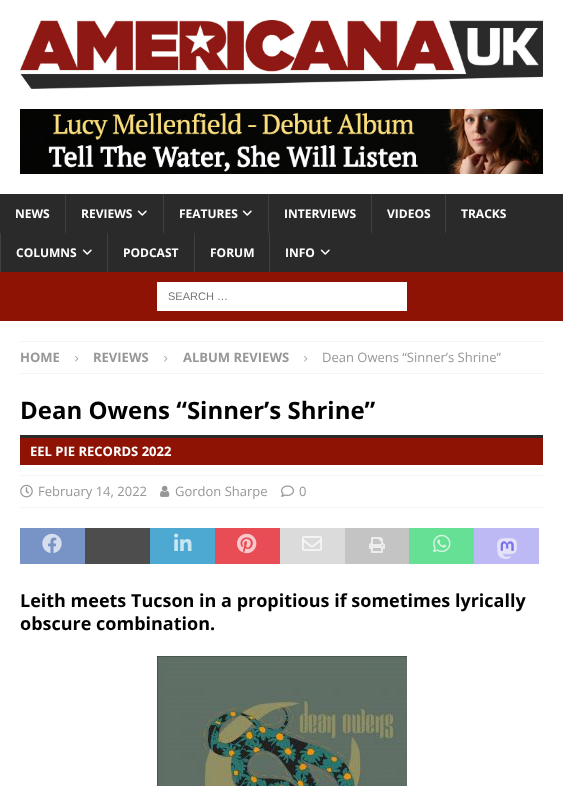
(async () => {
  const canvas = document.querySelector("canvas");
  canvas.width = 563;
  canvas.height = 786;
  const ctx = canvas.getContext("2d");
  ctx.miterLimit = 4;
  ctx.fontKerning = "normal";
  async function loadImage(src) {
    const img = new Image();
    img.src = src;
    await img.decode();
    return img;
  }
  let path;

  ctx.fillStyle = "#ffffff";
  ctx.fillRect(0, 0, 563, 786);
  ctx.drawImage(await loadImage("img/1.png"), 20, 20, 523, 69);
  ctx.drawImage(await loadImage("img/2.png"), 20, 109, 523, 65);
  ctx.fillStyle = "#2a2a2a";
  ctx.fillRect(0, 194, 563, 78);
  ctx.fillStyle = "#3f3f3f";
  ctx.fillRect(65, 194, 1, 39);
  ctx.drawImage(await loadImage("img/3.png"), 137, 210, 10, 6);
  ctx.fillRect(163, 194, 1, 39);
  ctx.drawImage(await loadImage("img/3.png"), 242, 210, 10, 6);
  for (const [x, y, w, h, color] of [
    [268, 194, 1, 39, "#3f3f3f"],
    [371, 194, 1, 39, "#3f3f3f"],
    [445, 194, 1, 39, "#3f3f3f"],
    [0, 233, 1, 39, "#3f3f3f"],
  ]) {
    ctx.fillStyle = color;
    ctx.fillRect(x, y, w, h);
  }
  ctx.drawImage(await loadImage("img/3.png"), 82, 249, 10, 6);
  for (const [x, y, w, h, color] of [
    [107, 233, 1, 39, "#3f3f3f"],
    [194, 233, 1, 39, "#3f3f3f"],
    [269, 233, 1, 39, "#3f3f3f"],
  ]) {
    ctx.fillStyle = color;
    ctx.fillRect(x, y, w, h);
  }
  ctx.drawImage(await loadImage("img/3.png"), 320, 249, 10, 6);
  ctx.fillStyle = "#8e1305";
  ctx.fillRect(0, 272, 563, 49);
  ctx.fillStyle = "#ffffff";
  ctx.fillRect(157, 282, 250, 29);
  path = new Path2D("M20 341.5H543");
  ctx.strokeStyle = "#ebebeb";
  ctx.setLineDash([1, 1]);
  ctx.stroke(path);
  path = new Path2D("M20 373.5H543");
  ctx.stroke(path);
  ctx.drawImage(await loadImage("img/4.png"), 75, 356, 4, 6);
  ctx.drawImage(await loadImage("img/4.png"), 164, 356, 4, 6);
  ctx.drawImage(await loadImage("img/4.png"), 304, 356, 4, 6);
  ctx.fillStyle = "#2a2a2a";
  ctx.fillRect(20, 435, 523, 3);
  ctx.fillStyle = "#8e1305";
  ctx.fillRect(20, 438, 523, 27);
  path = new Path2D("M20 475.5H543");
  ctx.stroke(path);
  path = new Path2D("M20 507.5H543");
  ctx.stroke(path);
  ctx.drawImage(await loadImage("img/5.png"), 20, 484, 13, 14);
  ctx.drawImage(await loadImage("img/6.png"), 160, 485, 10, 12);
  ctx.drawImage(await loadImage("img/7.png"), 281, 485, 13, 12);
  ctx.fillStyle = "#7893c6";
  ctx.fillRect(20, 528, 65, 36);
  ctx.drawImage(await loadImage("img/8.png"), 42, 533, 20, 20);
  ctx.fillStyle = "#4d4d4d";
  ctx.fillRect(85, 528, 65, 36);
  ctx.fillStyle = "#4da9d2";
  ctx.fillRect(150, 528, 65, 36);
  ctx.drawImage(await loadImage("img/9.png"), 174, 533, 18, 18);
  ctx.fillStyle = "#e84d56";
  ctx.fillRect(215, 528, 65, 36);
  ctx.drawImage(await loadImage("img/10.png"), 237, 533, 20, 21);
  ctx.fillStyle = "#dbdbdb";
  ctx.fillRect(280, 528, 65, 36);
  ctx.drawImage(await loadImage("img/11.png"), 302, 536, 20, 15);
  ctx.fillStyle = "#c4c4c4";
  ctx.fillRect(345, 528, 64, 36);
  ctx.drawImage(await loadImage("img/12.png"), 369, 537, 16, 16);
  ctx.fillStyle = "#66e094";
  ctx.fillRect(409, 528, 65, 36);
  ctx.drawImage(await loadImage("img/13.png"), 433, 534, 18, 19);
  ctx.fillStyle = "#bdb9f5";
  ctx.fillRect(474, 528, 65, 36);
  ctx.drawImage(await loadImage("img/14.png"), 497, 538, 20, 21);
  ctx.drawImage(await loadImage("img/15.png"), 157, 656, 250, 130);
  ctx.font = "bold 12px Open Sans";
  ctx.fillStyle = "#ffffff";
  for (const [text, x, y] of [
    ["NEWS", 15, 218],
    ["REVIEWS", 81, 218],
    ["FEATURES", 179, 218],
    ["INTERVIEWS", 284, 218],
    ["VIDEOS", 387, 218],
    ["TRACKS", 461, 218],
    ["COLUMNS", 16, 257],
    ["PODCAST", 123, 257],
    ["FORUM", 210, 257],
    ["INFO", 285, 257],
  ]) {
    ctx.fillText(text, x, y);
  }
  ctx.font = "11px Liberation Sans";
  ctx.fillStyle = "#757575";
  ctx.fillText("SEARCH …", 168, 300);
  ctx.font = "bold 13px Open Sans";
  ctx.fillStyle = "#979797";
  for (const [text, x, y] of [
    ["HOME", 20, 362],
    ["REVIEWS", 93, 362],
    ["ALBUM REVIEWS", 183, 362],
  ]) {
    ctx.fillText(text, x, y);
  }
  ctx.font = "13px Open Sans";
  ctx.fillText("Dean Owens “Sinner’s Shrine”", 322, 362);
  ctx.font = "bold 24px Open Sans";
  ctx.fillStyle = "#000000";
  ctx.fillText("Dean Owens “Sinner’s Shrine”", 20, 419);
  ctx.font = "bold 13px Open Sans";
  ctx.fillStyle = "#ffffff";
  ctx.fillText("EEL PIE RECORDS 2022", 30, 456);
  ctx.font = "13px Open Sans";
  ctx.fillStyle = "#979797";
  for (const [text, x, y] of [
    ["February 14, 2022", 38, 496],
    ["Gordon Sharpe", 175, 496],
    ["0", 299, 496],
  ]) {
    ctx.fillText(text, x, y);
  }
  ctx.font = "bold 18px Open Sans";
  ctx.fillStyle = "#000000";
  ctx.fillText("Leith meets Tucson in a propitious if sometimes lyrically", 20, 607);
  ctx.fillText("obscure combination.", 20, 630);
})();
